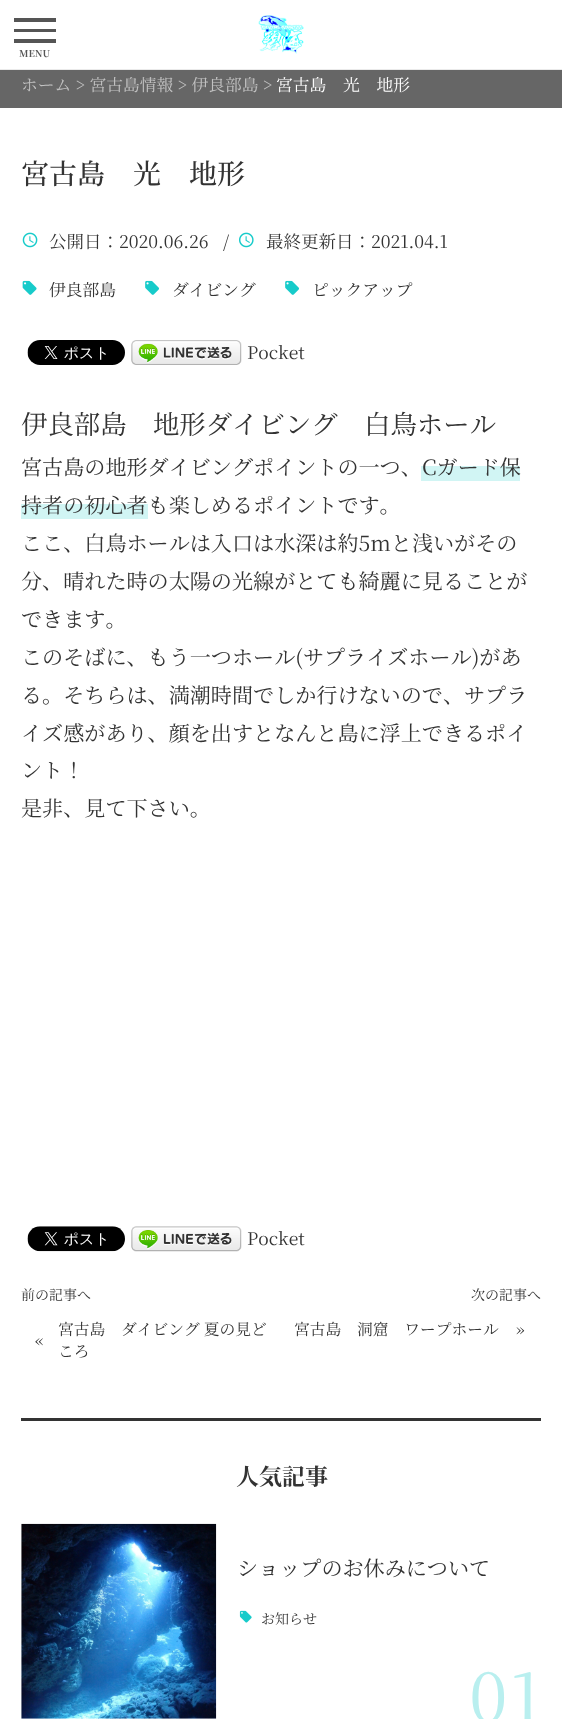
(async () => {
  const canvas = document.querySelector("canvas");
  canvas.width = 562;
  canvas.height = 1719;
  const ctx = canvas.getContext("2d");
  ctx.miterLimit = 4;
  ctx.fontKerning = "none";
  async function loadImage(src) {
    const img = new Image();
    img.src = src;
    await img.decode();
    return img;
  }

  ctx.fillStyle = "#ffffff";
  ctx.fillRect(0, 0, 562, 1719);
  for (const [x, y, w, h, color] of [
    [0, 69, 562, 1, "#eaeaea"],
    [14, 18, 42, 4, "#555555"],
    [14, 29, 42, 3, "#555555"],
    [14, 39, 42, 4, "#555555"],
  ]) {
    ctx.fillStyle = color;
    ctx.fillRect(x, y, w, h);
  }
  ctx.drawImage(await loadImage("img/1.png"), 258, 15, 46, 39);
  ctx.fillStyle = "#666666";
  ctx.fillRect(0, 70, 562, 38);
  ctx.drawImage(await loadImage("img/2.png"), 22, 232, 16, 16);
  ctx.drawImage(await loadImage("img/3.png"), 239, 232, 15, 16);
  ctx.drawImage(await loadImage("img/4.png"), 22, 280, 15, 15);
  ctx.drawImage(await loadImage("img/5.png"), 145, 280, 14, 15);
  ctx.drawImage(await loadImage("img/5.png"), 285, 280, 14, 15);
  ctx.drawImage(await loadImage("img/6.png"), 27, 340, 98, 25);
  ctx.drawImage(await loadImage("img/7.png"), 131, 340, 111, 25);
  ctx.fillStyle = "#d1f5f4";
  ctx.fillRect(421, 466, 99, 15);
  ctx.fillRect(21, 504, 127, 15);
  ctx.drawImage(await loadImage("img/8.png"), 27, 1226, 98, 26);
  ctx.drawImage(await loadImage("img/9.png"), 131, 1226, 111, 26);
  ctx.fillStyle = "#333333";
  ctx.fillRect(21, 1418, 520, 3);
  ctx.drawImage(await loadImage("img/10.png"), 21, 1523, 196, 196);
  ctx.drawImage(await loadImage("img/11.png"), 239, 1610, 13, 13);
  ctx.font = "bold 9.5px Noto Serif JP";
  ctx.fillStyle = "#555555";
  ctx.fillText("MENU", 19, 57);
  ctx.font = "16.75px Noto Serif JP";
  ctx.fillStyle = "#c2c2c2";
  ctx.fillText("ホーム > 宮古島情報 > 伊良部島 >", 21, 91);
  ctx.fillStyle = "#ffffff";
  ctx.fillText("宮古島　光　地形", 276, 91);
  ctx.font = "500 28px Noto Serif JP";
  ctx.fillStyle = "#333333";
  ctx.fillText("宮古島　光　地形", 21, 184);
  ctx.font = "17.5px Noto Serif JP";
  for (const [text, x, y] of [
    ["公開日：2020.06.26", 49, 248],
    ["/", 223, 248],
    ["最終更新日：2021.04.1", 266, 248],
  ]) {
    ctx.fillText(text, x, y);
  }
  ctx.font = "16.75px Noto Serif JP";
  for (const [text, x, y] of [
    ["伊良部島", 49, 296],
    ["ダイビング", 172, 296],
    ["ピックアップ", 312, 296],
  ]) {
    ctx.fillText(text, x, y);
  }
  ctx.font = "17.5px Noto Serif JP";
  ctx.fillText("Pocket", 247, 359);
  ctx.font = "26.4px Noto Serif JP";
  ctx.fillText("伊良部島　地形ダイビング　白鳥ホール", 21, 434);
  ctx.font = "21.1px Noto Serif JP";
  for (const [text, x, y] of [
    ["宮古島の地形ダイビングポイントの一つ、", 21, 475],
    ["Cガード保", 422, 475],
    ["持者の初心者も楽しめるポイントです。", 21, 513],
    ["ここ、白鳥ホールは入口は水深は約5mと浅いがその", 21, 551],
    ["分、晴れた時の太陽の光線がとても綺麗に見ることが", 21, 589],
    ["できます。", 21, 627],
    ["このそばに、もう一つホール(サプライズホール)があ", 21, 665],
    ["る。そちらは、満潮時間でしか行けないので、サプラ", 21, 703],
    ["イズ感があり、顔を出すとなんと島に浮上できるポイ", 21, 741],
    ["ント！", 21, 778],
    ["是非、見て下さい。", 21, 816],
  ]) {
    ctx.fillText(text, x, y);
  }
  ctx.font = "17.5px Noto Serif JP";
  ctx.fillText("Pocket", 247, 1245);
  ctx.font = "14px Noto Serif JP";
  ctx.fillText("前の記事へ", 21, 1300);
  ctx.font = "15.75px Noto Serif JP";
  for (const [text, x, y] of [
    ["«", 35, 1346],
    ["宮古島　ダイビング 夏の見ど", 58, 1335],
    ["ころ", 58, 1357],
  ]) {
    ctx.fillText(text, x, y);
  }
  ctx.font = "14px Noto Serif JP";
  ctx.fillText("次の記事へ", 471, 1300);
  ctx.font = "15.75px Noto Serif JP";
  ctx.fillText("宮古島　洞窟　ワープホール", 294, 1335);
  ctx.fillText("»", 516, 1335);
  ctx.font = "bold 23px Noto Serif JP";
  ctx.fillText("人気記事", 236, 1485);
  ctx.font = "21.1px Noto Serif JP";
  ctx.fillText("ショップのお休みについて", 237, 1576);
  ctx.font = "14px Noto Serif JP";
  ctx.fillText("お知らせ", 261, 1624);
  ctx.font = "70px Noto Serif JP";
  ctx.fillStyle = "#b9efef";
  ctx.fillText("01", 469, 1722);
})();
